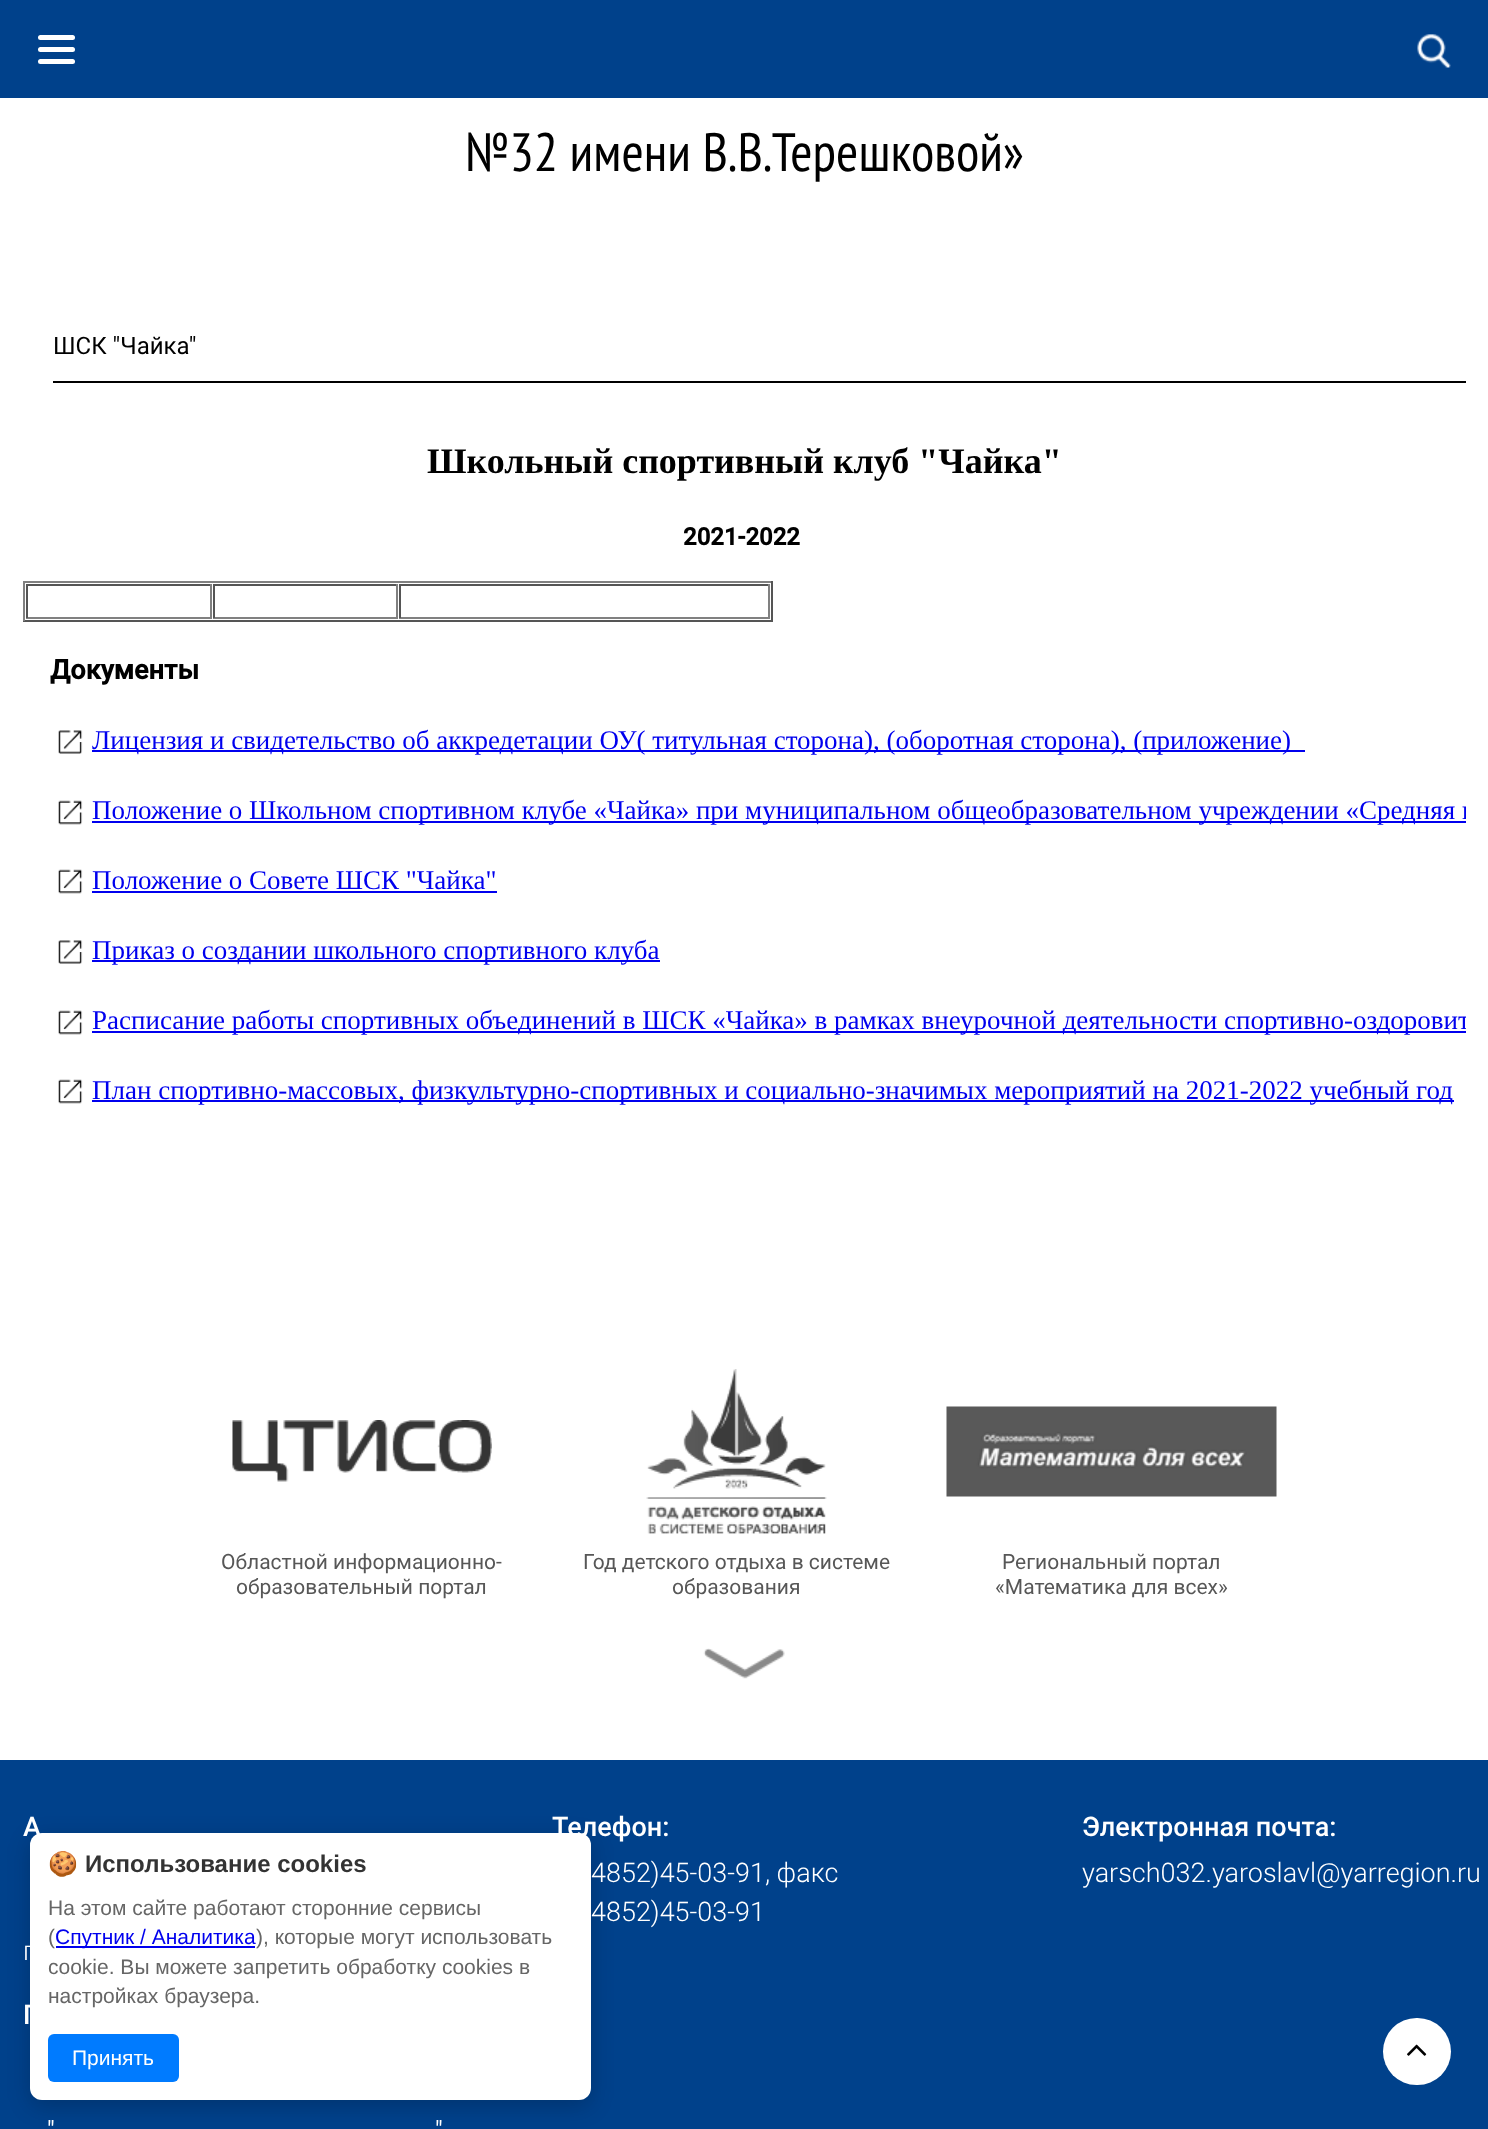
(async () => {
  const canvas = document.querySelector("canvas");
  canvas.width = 1488;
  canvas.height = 2129;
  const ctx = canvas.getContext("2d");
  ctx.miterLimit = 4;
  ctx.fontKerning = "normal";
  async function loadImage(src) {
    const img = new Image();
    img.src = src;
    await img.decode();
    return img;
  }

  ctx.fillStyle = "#ffffff";
  ctx.fillRect(0, 0, 1488, 2129);
  ctx.fillStyle = "#00418b";
  ctx.fillRect(0, 0, 1488, 98);
  ctx.fillStyle = "#ffffff";
  ctx.beginPath();
  ctx.roundRect(38, 35, 37, 5, 2.5);
  ctx.fill();
  ctx.beginPath();
  ctx.roundRect(38, 47, 37, 5, 2.5);
  ctx.fill();
  ctx.beginPath();
  ctx.roundRect(38, 59, 37, 5, 2.5);
  ctx.fill();
  ctx.drawImage(await loadImage("img/1.png"), 1417, 34, 34, 34);
  for (const [x, y, w, h, color] of [
    [53, 381, 1413, 2, "#000000"],
    [23, 581, 750, 2, "#808080"],
    [771, 581, 2, 40, "#555555"],
    [23, 620, 750, 2, "#555555"],
    [23, 581, 2, 40, "#808080"],
    [26, 584, 186, 2, "#555555"],
    [210, 584, 2, 34, "#808080"],
    [26, 617, 186, 2, "#808080"],
    [26, 584, 2, 34, "#555555"],
    [213, 584, 185, 2, "#555555"],
    [396, 584, 2, 34, "#808080"],
    [213, 617, 185, 2, "#808080"],
    [213, 584, 2, 34, "#555555"],
    [399, 584, 371, 2, "#555555"],
    [768, 584, 2, 34, "#808080"],
    [399, 617, 371, 2, "#808080"],
    [399, 584, 2, 34, "#555555"],
  ]) {
    ctx.fillStyle = color;
    ctx.fillRect(x, y, w, h);
  }
  ctx.drawImage(await loadImage("img/2.png"), 58, 730, 25, 24);
  ctx.fillStyle = "#0000ee";
  ctx.fillRect(92, 750, 1213, 2);
  ctx.drawImage(await loadImage("img/3.png"), 58, 800, 25, 25);
  ctx.fillRect(92, 821, 1374, 2);
  ctx.drawImage(await loadImage("img/3.png"), 58, 869, 25, 25);
  ctx.fillRect(92, 891, 405, 2);
  ctx.drawImage(await loadImage("img/2.png"), 58, 940, 25, 24);
  ctx.fillRect(92, 960, 568, 2);
  ctx.drawImage(await loadImage("img/3.png"), 58, 1010, 25, 25);
  ctx.fillRect(92, 1031, 1374, 2);
  ctx.drawImage(await loadImage("img/3.png"), 58, 1079, 25, 25);
  ctx.fillRect(92, 1100, 1362, 2);
  ctx.drawImage(await loadImage("img/4.png"), 232, 1420, 260, 62);
  ctx.drawImage(await loadImage("img/5.png"), 646, 1369, 181, 165);
  ctx.drawImage(await loadImage("img/6.png"), 946, 1406, 331, 91);
  ctx.drawImage(await loadImage("img/7.png"), 703, 1648, 82, 31);
  ctx.fillStyle = "#00418b";
  ctx.fillRect(0, 1760, 1488, 369);
  ctx.fillStyle = "#ffffff";
  ctx.beginPath();
  ctx.roundRect(1383, 2018, 68, 67, 33.5);
  ctx.fill();
  ctx.drawImage(await loadImage("img/8.png"), 1407, 2044, 20, 12);
  ctx.fillStyle = "rgba(0, 0, 0, 0.2)";
  ctx.filter = "blur(11px)";
  ctx.beginPath();
  ctx.roundRect(30, 1839, 561, 267, 12);
  ctx.fill();
  ctx.filter = "none";
  ctx.fillStyle = "#ffffff";
  ctx.beginPath();
  ctx.roundRect(30, 1833, 561, 267, 12);
  ctx.fill();
  ctx.fillStyle = "#0000ee";
  ctx.fillRect(56, 1946, 199, 2);
  ctx.fillStyle = "#007bff";
  ctx.beginPath();
  ctx.roundRect(48, 2034, 131, 48, 6);
  ctx.fill();
  ctx.font = "54px PT Sans Narrow";
  ctx.fillStyle = "#000000";
  ctx.fillText("№32 имени В.В.Терешковой»", 465, 171);
  ctx.font = "24px Roboto";
  ctx.fillText("ШСК \"Чайка\"", 53, 354);
  ctx.font = "bold 36px Liberation Serif";
  ctx.fillText("Школьный спортивный клуб \"Чайка\"", 427, 473);
  ctx.font = "bold 24px Roboto";
  ctx.fillText("2021-2022", 683, 545);
  ctx.font = "bold 27px Roboto";
  ctx.fillText("Документы", 50, 679);
  ctx.font = "27px Liberation Serif";
  ctx.fillStyle = "#0000ee";
  ctx.fillText("Лицензия и свидетельство об аккредетации ОУ( титульная сторона), (оборотная сторона), (приложение)", 92, 749);
  ctx.save();
  ctx.beginPath();
  ctx.rect(23, 407, 1443, 798);
  ctx.clip();
  ctx.fillText("Положение о Школьном спортивном клубе «Чайка» при муниципальном общеобразовательном учреждении «Средняя ш", 92, 819);
  ctx.restore();
  ctx.fillText("Положение о Совете ШСК \"Чайка\"", 92, 889);
  ctx.fillText("Приказ о создании школьного спортивного клуба", 92, 959);
  ctx.save();
  ctx.beginPath();
  ctx.rect(23, 407, 1443, 798);
  ctx.clip();
  ctx.fillText("Расписание работы спортивных объединений в ШСК «Чайка» в рамках внеурочной деятельности спортивно-оздоровит", 92, 1029);
  ctx.restore();
  ctx.fillText("План спортивно-массовых, физкультурно-спортивных и социально-значимых мероприятий на 2021-2022 учебный год", 92, 1099);
  ctx.font = "21px Roboto";
  ctx.fillStyle = "#575757";
  for (const [text, x, y] of [
    ["Областной информационно-", 221, 1569],
    ["образовательный портал", 236, 1594],
    ["Год детского отдыха в системе", 583, 1569],
    ["образования", 672, 1594],
    ["Региональный портал", 1002, 1569],
    ["«Математика для всех»", 995, 1594],
  ]) {
    ctx.fillText(text, x, y);
  }
  ctx.font = "500 27px Roboto";
  ctx.fillStyle = "#ffffff";
  ctx.fillText("А", 23, 1836);
  ctx.font = "300 27px Roboto";
  ctx.fillText("г", 23, 1960);
  ctx.font = "500 27px Roboto";
  ctx.fillText("Телефон:", 552, 1836);
  ctx.font = "300 27px Roboto";
  ctx.fillText("4852)45-03-91, факс", 591, 1882);
  ctx.fillText("4852)45-03-91", 591, 1921);
  ctx.font = "500 27px Roboto";
  ctx.fillText("Электронная почта:", 1082, 1836);
  ctx.font = "300 27px Roboto";
  ctx.fillText("yarsch032.yaroslavl@yarregion.ru", 1082, 1882);
  ctx.font = "500 27px Roboto";
  ctx.fillText("Г", 23, 2024);
  ctx.font = "24px Roboto";
  ctx.fillText("\"", 47, 2138);
  ctx.fillText("\"", 435, 2138);
  ctx.font = "bold 24px Noto Color Emoji";
  ctx.fillStyle = "#333333";
  ctx.fillText("🍪", 48, 1872);
  ctx.font = "bold 24px Liberation Sans";
  ctx.fillText("Использование cookies", 85, 1872);
  ctx.font = "21px Liberation Sans";
  ctx.fillStyle = "#666666";
  ctx.fillText("На этом сайте работают сторонние сервисы", 48, 1915);
  ctx.fillText("(", 48, 1944);
  ctx.fillStyle = "#0000ee";
  ctx.fillText("Спутник / Аналитика", 55, 1944);
  ctx.fillStyle = "#666666";
  for (const [text, x, y] of [
    ["), которые могут использовать", 256, 1944],
    ["cookie. Вы можете запретить обработку cookies в", 48, 1974],
    ["настройках браузера.", 48, 2003],
  ]) {
    ctx.fillText(text, x, y);
  }
  ctx.fillStyle = "#ffffff";
  ctx.fillText("Принять", 72, 2065);
})();
